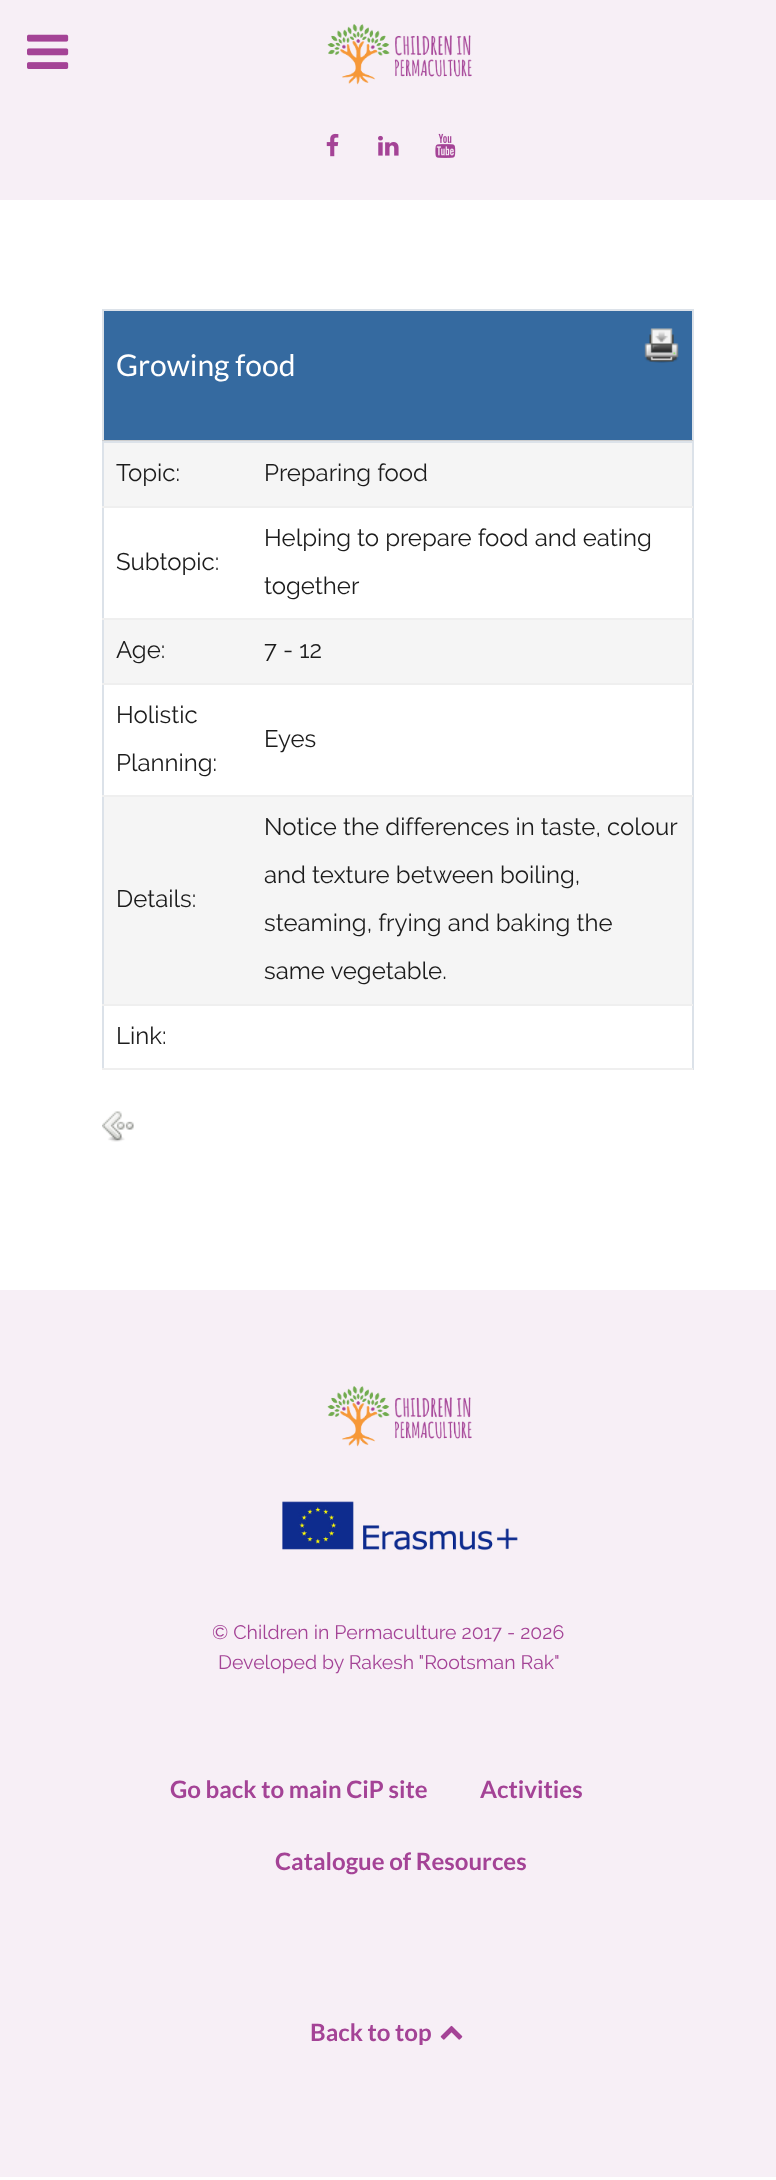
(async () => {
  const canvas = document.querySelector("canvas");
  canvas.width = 776;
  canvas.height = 2180;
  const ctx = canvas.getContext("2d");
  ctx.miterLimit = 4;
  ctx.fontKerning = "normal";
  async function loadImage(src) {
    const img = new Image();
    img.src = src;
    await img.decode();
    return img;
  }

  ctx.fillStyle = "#ffffff";
  ctx.fillRect(0, 0, 776, 2180);
  ctx.fillStyle = "#f7eff6";
  ctx.fillRect(0, 0, 776, 200);
  ctx.drawImage(await loadImage("img/1.png"), 327, 24, 145, 61);
  ctx.drawImage(await loadImage("img/2.png"), 326, 133, 13, 24);
  ctx.drawImage(await loadImage("img/3.png"), 378, 135, 21, 21);
  ctx.drawImage(await loadImage("img/4.png"), 435, 133, 21, 25);
  ctx.drawImage(await loadImage("img/5.png"), 27, 34, 42, 35);
  for (const [x, y, w, h, color] of [
    [102, 309, 591, 2, "#dce2e9"],
    [692, 309, 2, 132, "#dce2e9"],
    [102, 309, 2, 132, "#dce2e9"],
    [104, 311, 588, 129, "#356aa0"],
    [102, 440, 591, 1, "#cccccc"],
  ]) {
    ctx.fillStyle = color;
    ctx.fillRect(x, y, w, h);
  }
  ctx.drawImage(await loadImage("img/6.png"), 644, 328, 35, 35);
  for (const [x, y, w, h, color] of [
    [102, 441, 591, 2, "#dce2e9"],
    [692, 441, 2, 629, "#dce2e9"],
    [102, 441, 2, 629, "#dce2e9"],
    [104, 443, 588, 63, "#f5f5f5"],
    [102, 506, 591, 2, "#efefef"],
    [102, 618, 591, 2, "#efefef"],
    [104, 620, 588, 63, "#f5f5f5"],
    [102, 683, 591, 2, "#efefef"],
    [102, 795, 591, 2, "#efefef"],
    [104, 797, 588, 207, "#f5f5f5"],
    [102, 1004, 591, 2, "#efefef"],
    [102, 1068, 591, 2, "#efefef"],
  ]) {
    ctx.fillStyle = color;
    ctx.fillRect(x, y, w, h);
  }
  ctx.drawImage(await loadImage("img/7.png"), 102, 1111, 32, 31);
  ctx.fillStyle = "#f7eff6";
  ctx.fillRect(0, 1290, 776, 887);
  ctx.drawImage(await loadImage("img/8.png"), 327, 1386, 145, 61);
  ctx.drawImage(await loadImage("img/9.png"), 282, 1501, 236, 50);
  ctx.drawImage(await loadImage("img/10.png"), 440, 2025, 23, 15);
  ctx.font = "30px Lato";
  ctx.fillStyle = "#ffffff";
  ctx.fillText("Growing food", 116, 376);
  ctx.font = "24px Raleway";
  ctx.fillStyle = "#1c1c1c";
  for (const [text, x, y] of [
    ["Topic:", 116, 481],
    ["Preparing food", 264, 481],
    ["Subtopic:", 116, 570],
    ["Helping to prepare food and eating", 264, 546],
    ["together", 264, 594],
    ["Age:", 116, 658],
    ["7 - 12", 264, 658],
    ["Holistic", 116, 723],
    ["Planning:", 116, 771],
    ["Eyes", 264, 747],
    ["Details:", 116, 907],
    ["Notice the differences in taste, colour", 264, 835],
    ["and texture between boiling,", 264, 883],
    ["steaming, frying and baking the", 264, 931],
    ["same vegetable.", 264, 979],
    ["Link:", 116, 1044],
  ]) {
    ctx.fillText(text, x, y);
  }
  ctx.font = "19.5px Raleway";
  ctx.fillStyle = "#a44396";
  ctx.fillText("© Children in Permaculture 2017 - 2026", 212, 1639);
  ctx.fillText("Developed by Rakesh \"Rootsman Rak\"", 218, 1669);
  ctx.font = "bold 24px Lato";
  for (const [text, x, y] of [
    ["Go back to main CiP site", 170, 1798],
    ["Activities", 480, 1798],
    ["Catalogue of Resources", 275, 1870],
    ["Back to top", 310, 2041],
  ]) {
    ctx.fillText(text, x, y);
  }
})();
